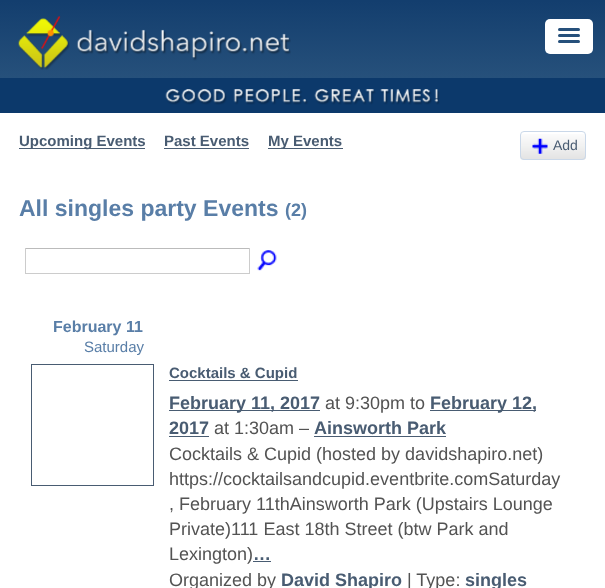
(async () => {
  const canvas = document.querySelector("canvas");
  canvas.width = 605;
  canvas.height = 588;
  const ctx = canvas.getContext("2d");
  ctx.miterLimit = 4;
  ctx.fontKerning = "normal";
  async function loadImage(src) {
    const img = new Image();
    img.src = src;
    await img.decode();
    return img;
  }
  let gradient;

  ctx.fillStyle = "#ffffff";
  ctx.fillRect(0, 0, 605, 588);
  gradient = ctx.createLinearGradient(303, 0, 303, 113);
  gradient.addColorStop(0.01, "#133e6e");
  gradient.addColorStop(1, "#2f5981");
  ctx.fillStyle = gradient;
  ctx.fillRect(0, 0, 605, 78);
  ctx.drawImage(await loadImage("img/1.png"), 18, 16, 273, 54);
  ctx.fillStyle = "#0c396b";
  ctx.fillRect(0, 78, 605, 35);
  ctx.drawImage(await loadImage("img/2.png"), 165, 89, 275, 16);
  ctx.fillStyle = "#ffffff";
  ctx.beginPath();
  ctx.roundRect(545, 19, 48, 35, 5);
  ctx.fill();
  ctx.fillStyle = "#26507b";
  ctx.beginPath();
  ctx.roundRect(558, 28, 22, 3, 1.5);
  ctx.fill();
  ctx.beginPath();
  ctx.roundRect(558, 34, 22, 3, 1.5);
  ctx.fill();
  ctx.beginPath();
  ctx.roundRect(558, 40, 22, 3, 1.5);
  ctx.fill();
  for (const [x, y, w, h, color] of [
    [19, 148, 126, 1, "#495c72"],
    [164, 148, 85, 1, "#495c72"],
    [268, 148, 75, 1, "#495c72"],
  ]) {
    ctx.fillStyle = color;
    ctx.fillRect(x, y, w, h);
  }
  ctx.drawImage(await loadImage("img/3.png"), 520, 134, 66, 26);
  ctx.beginPath();
  ctx.roundRect(520.5, 131.5, 65, 28, 3.5);
  ctx.strokeStyle = "#cad8e9";
  ctx.stroke();
  ctx.drawImage(await loadImage("img/4.png"), 532, 138, 16, 16);
  for (const [x, y, w, h, color] of [
    [25, 248, 225, 1, "#bbbbbb"],
    [249, 248, 1, 26, "#cccccc"],
    [25, 273, 225, 1, "#cccccc"],
    [25, 248, 1, 26, "#cccccc"],
  ]) {
    ctx.fillStyle = color;
    ctx.fillRect(x, y, w, h);
  }
  ctx.drawImage(await loadImage("img/5.png"), 257, 250, 20, 21);
  ctx.strokeStyle = "#495c72";
  ctx.strokeRect(31.5, 364.5, 122, 121);
  for (const [x, y, w, h, color] of [
    [169, 380, 129, 1, "#495c72"],
    [169, 410, 151, 1, "#495c72"],
    [430, 410, 106, 1, "#495c72"],
    [169, 436, 40, 1, "#495c72"],
    [314, 436, 132, 1, "#495c72"],
    [253, 561, 18, 1, "#495c72"],
  ]) {
    ctx.fillStyle = color;
    ctx.fillRect(x, y, w, h);
  }
  ctx.font = "bold 15px Liberation Sans";
  for (const [text, x, y] of [
    ["Upcoming Events", 19, 146],
    ["Past Events", 164, 146],
    ["My Events", 268, 146],
  ]) {
    ctx.fillText(text, x, y);
  }
  ctx.font = "14px Liberation Sans";
  ctx.fillText("Add", 553, 150);
  ctx.font = "bold 23px Liberation Sans";
  ctx.fillStyle = "#597ea7";
  ctx.fillText("All singles party Events", 19, 216);
  ctx.font = "bold 18px Liberation Sans";
  ctx.fillText("(2)", 285, 216);
  ctx.font = "bold 16px Liberation Sans";
  ctx.fillText("February 11", 53, 332);
  ctx.font = "15px Liberation Sans";
  ctx.fillText("Saturday", 84, 352);
  ctx.font = "bold 15px Liberation Sans";
  ctx.fillStyle = "#495c72";
  ctx.fillText("Cocktails & Cupid", 169, 378);
  ctx.font = "bold 18px Liberation Sans";
  ctx.fillText("February 11, 2017", 169, 409);
  ctx.font = "18px Liberation Sans";
  ctx.fillStyle = "#535353";
  ctx.fillText("at 9:30pm to", 325, 409);
  ctx.font = "bold 18px Liberation Sans";
  ctx.fillStyle = "#495c72";
  ctx.fillText("February 12,", 430, 409);
  ctx.fillText("2017", 169, 434);
  ctx.font = "18px Liberation Sans";
  ctx.fillStyle = "#535353";
  ctx.fillText("at 1:30am –", 214, 434);
  ctx.font = "bold 18px Liberation Sans";
  ctx.fillStyle = "#495c72";
  ctx.fillText("Ainsworth Park", 314, 434);
  ctx.font = "18px Liberation Sans";
  ctx.fillStyle = "#535353";
  for (const [text, x, y] of [
    ["Cocktails & Cupid (hosted by davidshapiro.net)", 169, 460],
    ["https://cocktailsandcupid.eventbrite.comSaturday", 169, 485],
    [", February 11thAinsworth Park (Upstairs Lounge", 169, 510],
    ["Private)111 East 18th Street (btw Park and", 169, 535],
    ["Lexington)", 169, 560],
  ]) {
    ctx.fillText(text, x, y);
  }
  ctx.font = "bold 18px Liberation Sans";
  ctx.fillStyle = "#495c72";
  ctx.fillText("…", 253, 560);
  ctx.font = "18px Liberation Sans";
  ctx.fillStyle = "#535353";
  ctx.fillText("Organized by", 169, 586);
  ctx.font = "bold 18px Liberation Sans";
  ctx.fillStyle = "#495c72";
  ctx.fillText("David Shapiro", 281, 586);
  ctx.font = "18px Liberation Sans";
  ctx.fillStyle = "#535353";
  ctx.fillText("| Type:", 407, 586);
  ctx.font = "bold 18px Liberation Sans";
  ctx.fillStyle = "#495c72";
  ctx.fillText("singles", 465, 586);
})();
